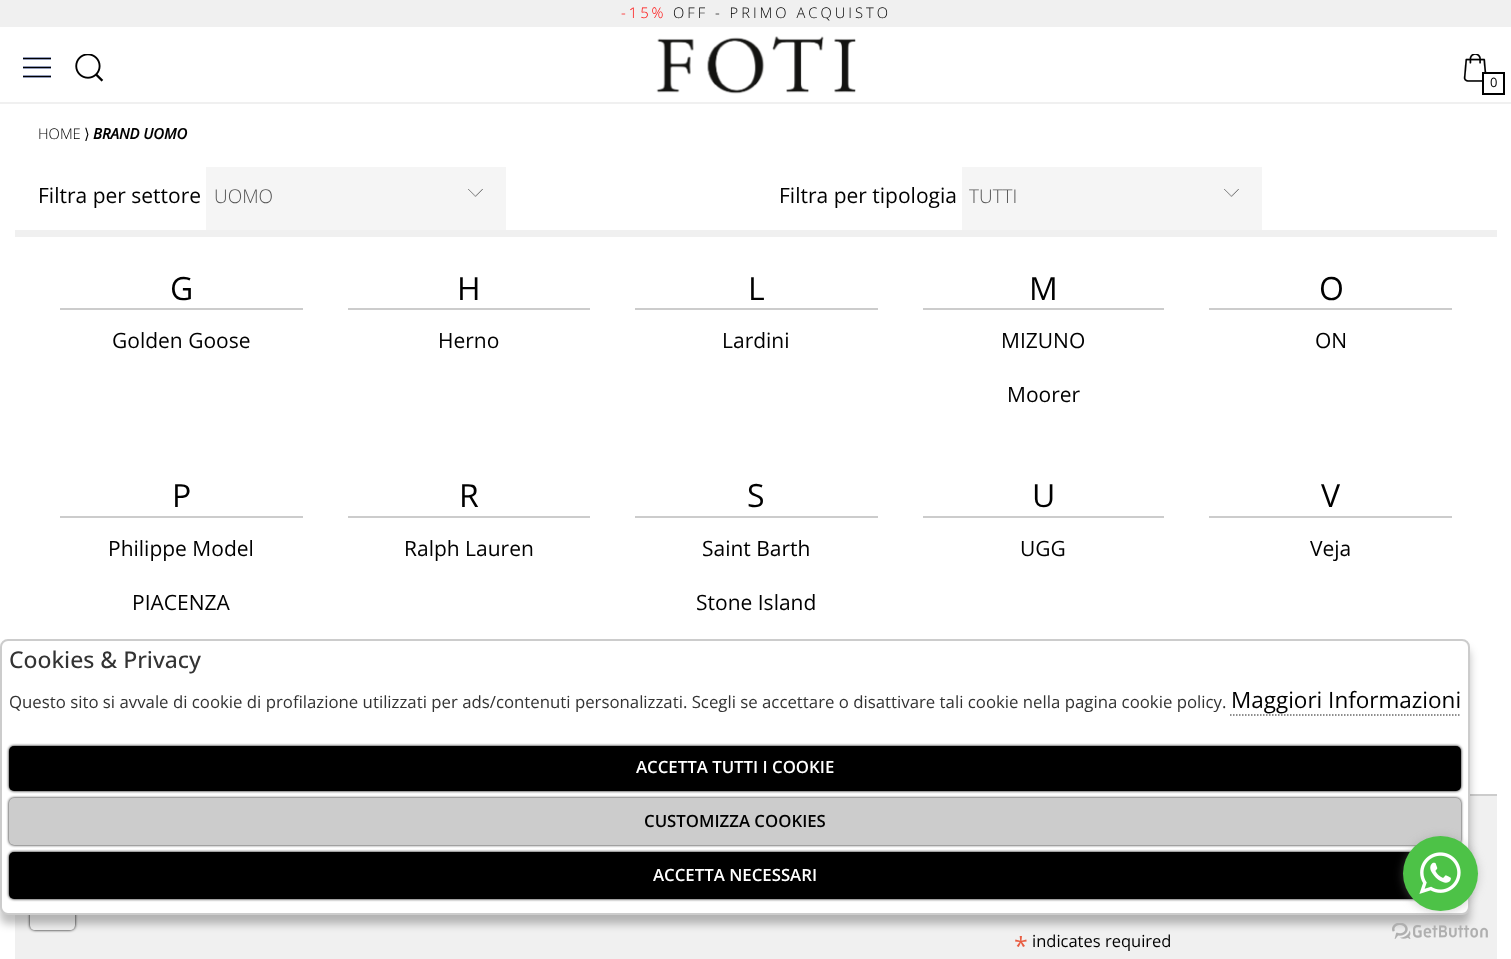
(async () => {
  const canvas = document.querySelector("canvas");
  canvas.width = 1511;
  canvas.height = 959;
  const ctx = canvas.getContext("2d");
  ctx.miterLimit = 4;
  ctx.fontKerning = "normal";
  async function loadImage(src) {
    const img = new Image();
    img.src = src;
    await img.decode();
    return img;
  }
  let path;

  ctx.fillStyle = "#ffffff";
  ctx.fillRect(0, 0, 1511, 959);
  ctx.fillStyle = "#f0f0f0";
  ctx.fillRect(0, 102, 1511, 2);
  ctx.fillRect(0, 0, 1511, 27);
  ctx.drawImage(await loadImage("img/1.png"), 23, 57, 28, 21);
  ctx.drawImage(await loadImage("img/2.png"), 75, 54, 29, 28);
  ctx.drawImage(await loadImage("img/3.png"), 656, 36, 200, 58);
  ctx.drawImage(await loadImage("img/4.png"), 1463, 54, 24, 28);
  ctx.fillStyle = "#ffffff";
  ctx.fillRect(1484, 74, 3, 8);
  ctx.strokeStyle = "#000000";
  ctx.lineWidth = 2;
  ctx.strokeRect(1483, 73, 21, 21);
  for (const [x, y, w, h, color] of [
    [1470, 794, 27, 2, "#cccccc"],
    [15, 230, 1482, 7, "#f0f0f0"],
    [206, 167, 300, 63, "#f5f5f5"],
  ]) {
    ctx.fillStyle = color;
    ctx.fillRect(x, y, w, h);
  }
  ctx.drawImage(await loadImage("img/5.png"), 468, 189, 15, 8);
  ctx.fillRect(962, 167, 300, 63);
  ctx.drawImage(await loadImage("img/5.png"), 1224, 189, 15, 8);
  for (const [x, y, w, h, color] of [
    [60, 308, 243, 2, "#cccccc"],
    [348, 308, 242, 2, "#cccccc"],
    [635, 308, 243, 2, "#cccccc"],
    [923, 308, 241, 2, "#cccccc"],
    [1209, 308, 243, 2, "#cccccc"],
    [60, 516, 243, 2, "#cccccc"],
    [348, 516, 242, 2, "#cccccc"],
    [635, 516, 243, 2, "#cccccc"],
    [923, 516, 241, 2, "#cccccc"],
    [1209, 516, 243, 2, "#cccccc"],
    [15, 796, 1482, 163, "#f0f0f0"],
  ]) {
    ctx.fillStyle = color;
    ctx.fillRect(x, y, w, h);
  }
  ctx.fillStyle = "rgba(0, 0, 0, 0.25)";
  ctx.filter = "blur(4.5px)";
  ctx.beginPath();
  ctx.roundRect(0, 648, 1470, 276, 8);
  ctx.fill();
  ctx.filter = "none";
  ctx.save();
  path = new Path2D("M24 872H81V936H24ZM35 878H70C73 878 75 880 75 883V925C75 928 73 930 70 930H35C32 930 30 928 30 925V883C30 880 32 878 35 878Z");
  ctx.clip(path, "evenodd");
  ctx.fillStyle = "#000000";
  ctx.filter = "blur(1.5px)";
  ctx.beginPath();
  ctx.roundRect(30, 878, 45, 52, 5);
  ctx.fill();
  ctx.filter = "none";
  ctx.restore();
  ctx.fillStyle = "#ffffff";
  ctx.beginPath();
  ctx.roundRect(1, 640, 1468, 274, 7);
  ctx.fill();
  ctx.strokeStyle = "#cccccc";
  ctx.stroke();
  path = new Path2D("M1230 715H1461");
  ctx.strokeStyle = "#696969";
  ctx.lineWidth = 1.5;
  ctx.setLineDash([1.5, 1.5]);
  ctx.stroke(path);
  ctx.fillStyle = "#000000";
  ctx.filter = "blur(1.5px)";
  ctx.beginPath();
  ctx.roundRect(9, 746, 1452, 45, 5);
  ctx.fill();
  ctx.filter = "none";
  ctx.beginPath();
  ctx.roundRect(9, 746, 1452, 45, 5);
  ctx.fill();
  ctx.filter = "blur(1.5px)";
  ctx.beginPath();
  ctx.roundRect(9, 798, 1452, 47, 5);
  ctx.fill();
  ctx.filter = "none";
  ctx.fillStyle = "#cccccc";
  ctx.beginPath();
  ctx.roundRect(9, 798, 1452, 47, 5);
  ctx.fill();
  ctx.fillStyle = "#000000";
  ctx.filter = "blur(1.5px)";
  ctx.beginPath();
  ctx.roundRect(9, 852, 1452, 47, 5);
  ctx.fill();
  ctx.filter = "none";
  ctx.beginPath();
  ctx.roundRect(9, 852, 1452, 47, 5);
  ctx.fill();
  ctx.drawImage(await loadImage("img/7.png"), 1392, 923, 96, 16);
  ctx.fillStyle = "rgba(136, 136, 136, 0.4)";
  ctx.filter = "blur(5px)";
  ctx.beginPath();
  ctx.roundRect(1403, 837, 75, 75, 37.5);
  ctx.fill();
  ctx.filter = "none";
  ctx.fillStyle = "#4dc247";
  ctx.beginPath();
  ctx.arc(1440.5, 873.5, 37.5, 0, Math.PI * 2);
  ctx.fill();
  ctx.drawImage(await loadImage("img/6.png"), 1419, 852, 42, 42);
  ctx.letterSpacing = "3px";
  ctx.font = "300 14.75px Open Sans";
  ctx.fillStyle = "#ff0000";
  ctx.fillText("-15%", 621, 18);
  ctx.fillStyle = "#000000";
  ctx.fillText("OFF - PRIMO ACQUISTO", 673, 18);
  ctx.letterSpacing = "0px";
  ctx.font = "13px Open Sans";
  ctx.fillText("0", 1490, 87);
  ctx.font = "300 14.75px Open Sans";
  ctx.fillText("HOME", 38, 139);
  ctx.font = "14.75px DejaVu Sans";
  ctx.fillText("⟩", 84, 139);
  ctx.font = "italic bold 14.75px Open Sans";
  ctx.fillText("BRAND UOMO", 93, 139);
  ctx.font = "21px Open Sans";
  ctx.fillText("Filtra per settore", 38, 203);
  ctx.font = "300 19px Open Sans";
  ctx.fillStyle = "#575757";
  ctx.fillText("UOMO", 214, 203);
  ctx.font = "21px Open Sans";
  ctx.fillStyle = "#000000";
  ctx.fillText("Filtra per tipologia", 779, 203);
  ctx.font = "300 19px Open Sans";
  ctx.fillStyle = "#575757";
  ctx.fillText("TUTTI", 969, 203);
  ctx.font = "32px Open Sans";
  ctx.fillStyle = "#000000";
  ctx.fillText("G", 170, 300);
  ctx.font = "21px Open Sans";
  ctx.fillText("Golden Goose", 112, 348);
  ctx.font = "32px Open Sans";
  ctx.fillText("H", 457, 300);
  ctx.font = "21px Open Sans";
  ctx.fillText("Herno", 438, 348);
  ctx.font = "32px Open Sans";
  ctx.fillText("L", 748, 300);
  ctx.font = "21px Open Sans";
  ctx.fillText("Lardini", 722, 348);
  ctx.font = "32px Open Sans";
  ctx.fillText("M", 1029, 300);
  ctx.font = "21px Open Sans";
  ctx.fillText("MIZUNO", 1001, 348);
  ctx.fillText("Moorer", 1007, 402);
  ctx.font = "32px Open Sans";
  ctx.fillText("O", 1319, 300);
  ctx.font = "21px Open Sans";
  ctx.fillText("ON", 1315, 348);
  ctx.font = "32px Open Sans";
  ctx.fillText("P", 172, 507);
  ctx.font = "21px Open Sans";
  ctx.fillText("Philippe Model", 108, 556);
  ctx.fillText("PIACENZA", 132, 610);
  ctx.font = "32px Open Sans";
  ctx.fillText("R", 459, 507);
  ctx.font = "21px Open Sans";
  ctx.fillText("Ralph Lauren", 404, 556);
  ctx.font = "32px Open Sans";
  ctx.fillText("S", 747, 507);
  ctx.font = "21px Open Sans";
  ctx.fillText("Saint Barth", 702, 556);
  ctx.fillText("Stone Island", 696, 610);
  ctx.font = "32px Open Sans";
  ctx.fillText("U", 1032, 507);
  ctx.font = "21px Open Sans";
  ctx.fillText("UGG", 1020, 556);
  ctx.font = "32px Open Sans";
  ctx.fillText("V", 1321, 507);
  ctx.font = "21px Open Sans";
  ctx.fillText("Veja", 1310, 556);
  ctx.font = "25px Open Sans";
  ctx.fillStyle = "#e85c41";
  ctx.fillText("*", 1014, 955);
  ctx.font = "16.5px Open Sans";
  ctx.fillStyle = "#000000";
  ctx.fillText("indicates required", 1032, 947);
  ctx.font = "500 23px Open Sans";
  ctx.fillStyle = "#333333";
  ctx.fillText("Cookies & Privacy", 9, 668);
  ctx.font = "16.8px Open Sans";
  ctx.fillText("Questo sito si avvale di cookie di profilazione utilizzati per ads/contenuti personalizzati. Scegli se accettare o disattivare tali cookie nella pagina cookie policy.", 9, 708);
  ctx.font = "22.5px Open Sans";
  ctx.fillStyle = "#000000";
  ctx.fillText("Maggiori Informazioni", 1231, 708);
  ctx.font = "600 16.8px Open Sans";
  ctx.fillStyle = "#ffffff";
  ctx.fillText("ACCETTA TUTTI I COOKIE", 636, 773);
  ctx.fillStyle = "#000000";
  ctx.fillText("CUSTOMIZZA COOKIES", 644, 827);
  ctx.fillStyle = "#ffffff";
  ctx.fillText("ACCETTA NECESSARI", 653, 881);
})();
